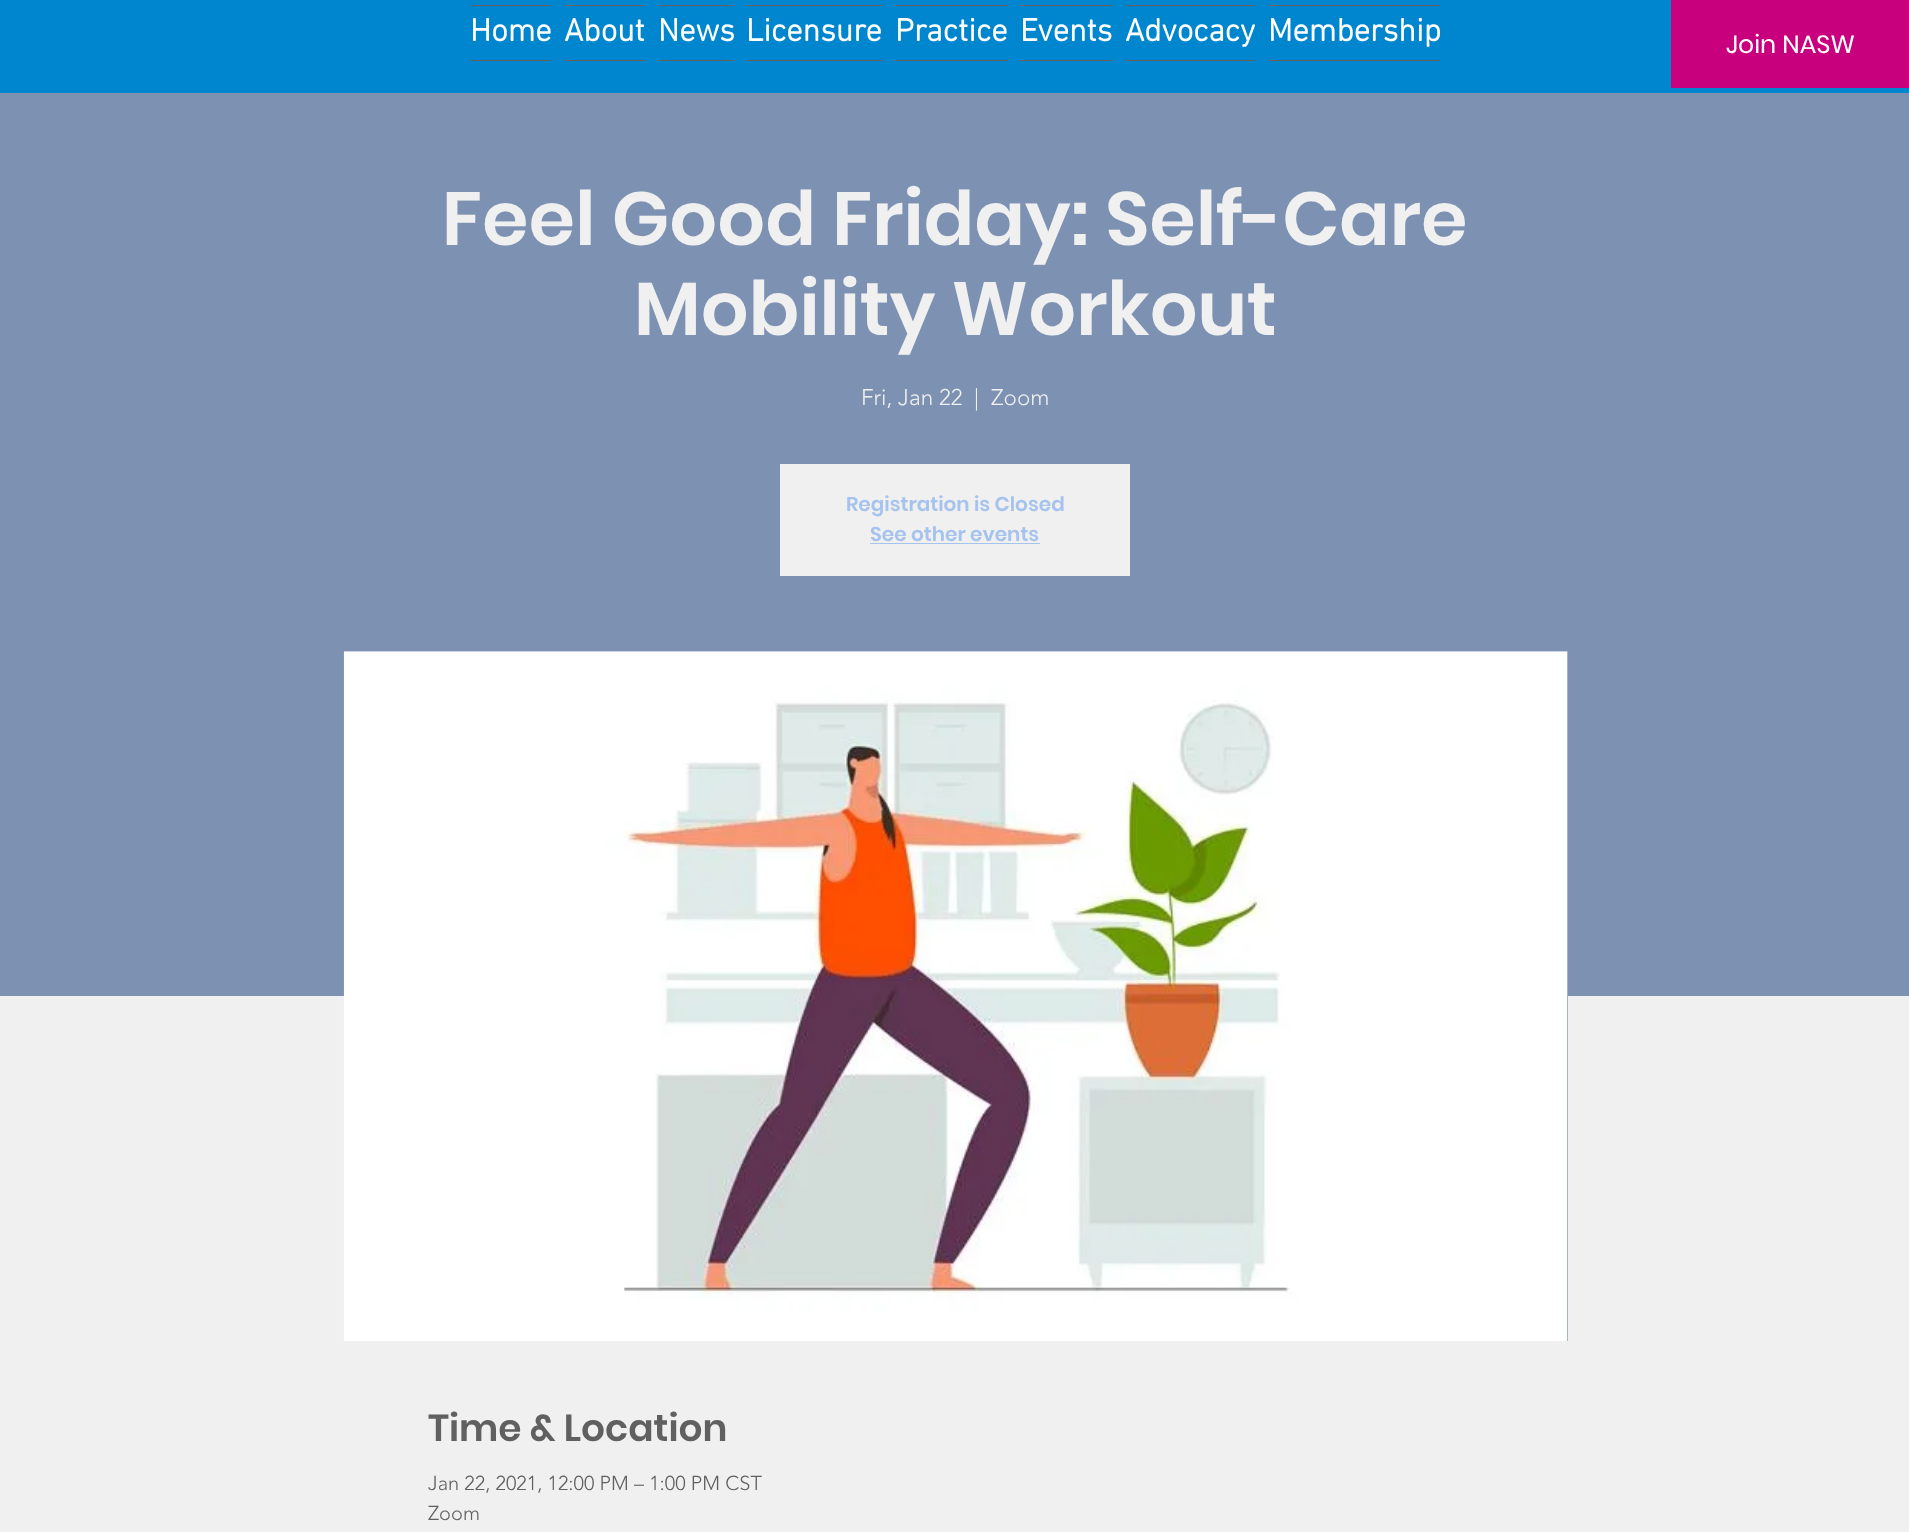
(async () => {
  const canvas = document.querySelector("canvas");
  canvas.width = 1909;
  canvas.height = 1532;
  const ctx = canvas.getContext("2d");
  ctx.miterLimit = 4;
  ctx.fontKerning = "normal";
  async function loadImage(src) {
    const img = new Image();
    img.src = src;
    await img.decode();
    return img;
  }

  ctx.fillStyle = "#f0f0f0";
  ctx.fillRect(0, 0, 1909, 1532);
  for (const [x, y, w, h, color] of [
    [0, 0, 1909, 93, "#0086cf"],
    [470, 5, 81, 1, "#606060"],
    [470, 60, 81, 1, "#606060"],
    [564, 5, 81, 1, "#606060"],
    [564, 60, 81, 1, "#606060"],
    [658, 5, 76, 1, "#606060"],
    [658, 60, 76, 1, "#606060"],
    [746, 5, 137, 1, "#606060"],
    [746, 60, 137, 1, "#606060"],
    [895, 5, 113, 1, "#606060"],
    [895, 60, 113, 1, "#606060"],
    [1020, 5, 93, 1, "#606060"],
    [1020, 60, 93, 1, "#606060"],
    [1125, 5, 130, 1, "#606060"],
    [1125, 60, 130, 1, "#606060"],
    [1268, 5, 172, 1, "#606060"],
    [1268, 60, 172, 1, "#606060"],
    [1671, 0, 238, 88, "#c9007d"],
    [0, 93, 1909, 903, "#7d92b2"],
    [780, 464, 350, 112, "#f0f0f0"],
    [870, 543, 170, 1, "#a6c3ed"],
    [344, 651, 1224, 690, "#8896cd"],
  ]) {
    ctx.fillStyle = color;
    ctx.fillRect(x, y, w, h);
  }
  ctx.drawImage(await loadImage("img/1.png"), 343, 651, 1225, 690);
  ctx.font = "bold 32.5px 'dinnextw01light'";
  ctx.fillStyle = "#ffffff";
  for (const [text, x, y] of [
    ["Home", 470, 41],
    ["About", 564, 41],
    ["News", 658, 41],
    ["Licensure", 746, 41],
    ["Practice", 895, 41],
    ["Events", 1020, 41],
    ["Advocacy", 1125, 41],
    ["Membership", 1268, 41],
  ]) {
    ctx.fillText(text, x, y);
  }
  ctx.font = "25px Poppins";
  ctx.fillText("Join NASW", 1726, 53);
  ctx.font = "600 75px Poppins";
  ctx.fillStyle = "#f0f0f0";
  ctx.fillText("Feel Good Friday: Self-Care", 442, 245);
  ctx.fillText("Mobility Workout", 634, 335);
  ctx.font = "300 22.5px 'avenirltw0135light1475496'";
  for (const [text, x, y] of [
    ["Fri, Jan 22", 861, 405],
    ["|", 974, 405],
    ["Zoom", 991, 405],
  ]) {
    ctx.fillText(text, x, y);
  }
  ctx.font = "600 20px Poppins";
  ctx.fillStyle = "#a6c3ed";
  ctx.fillText("Registration is Closed", 846, 511);
  ctx.fillText("See other events", 870, 541);
  ctx.font = "600 37.5px Poppins";
  ctx.fillStyle = "#606060";
  ctx.fillText("Time & Location", 428, 1441);
  ctx.font = "300 20px 'avenirltw0135light1475496'";
  ctx.fillText("Jan 22, 2021, 12:00 PM – 1:00 PM CST", 428, 1490);
  ctx.fillText("Zoom", 428, 1520);
})();
